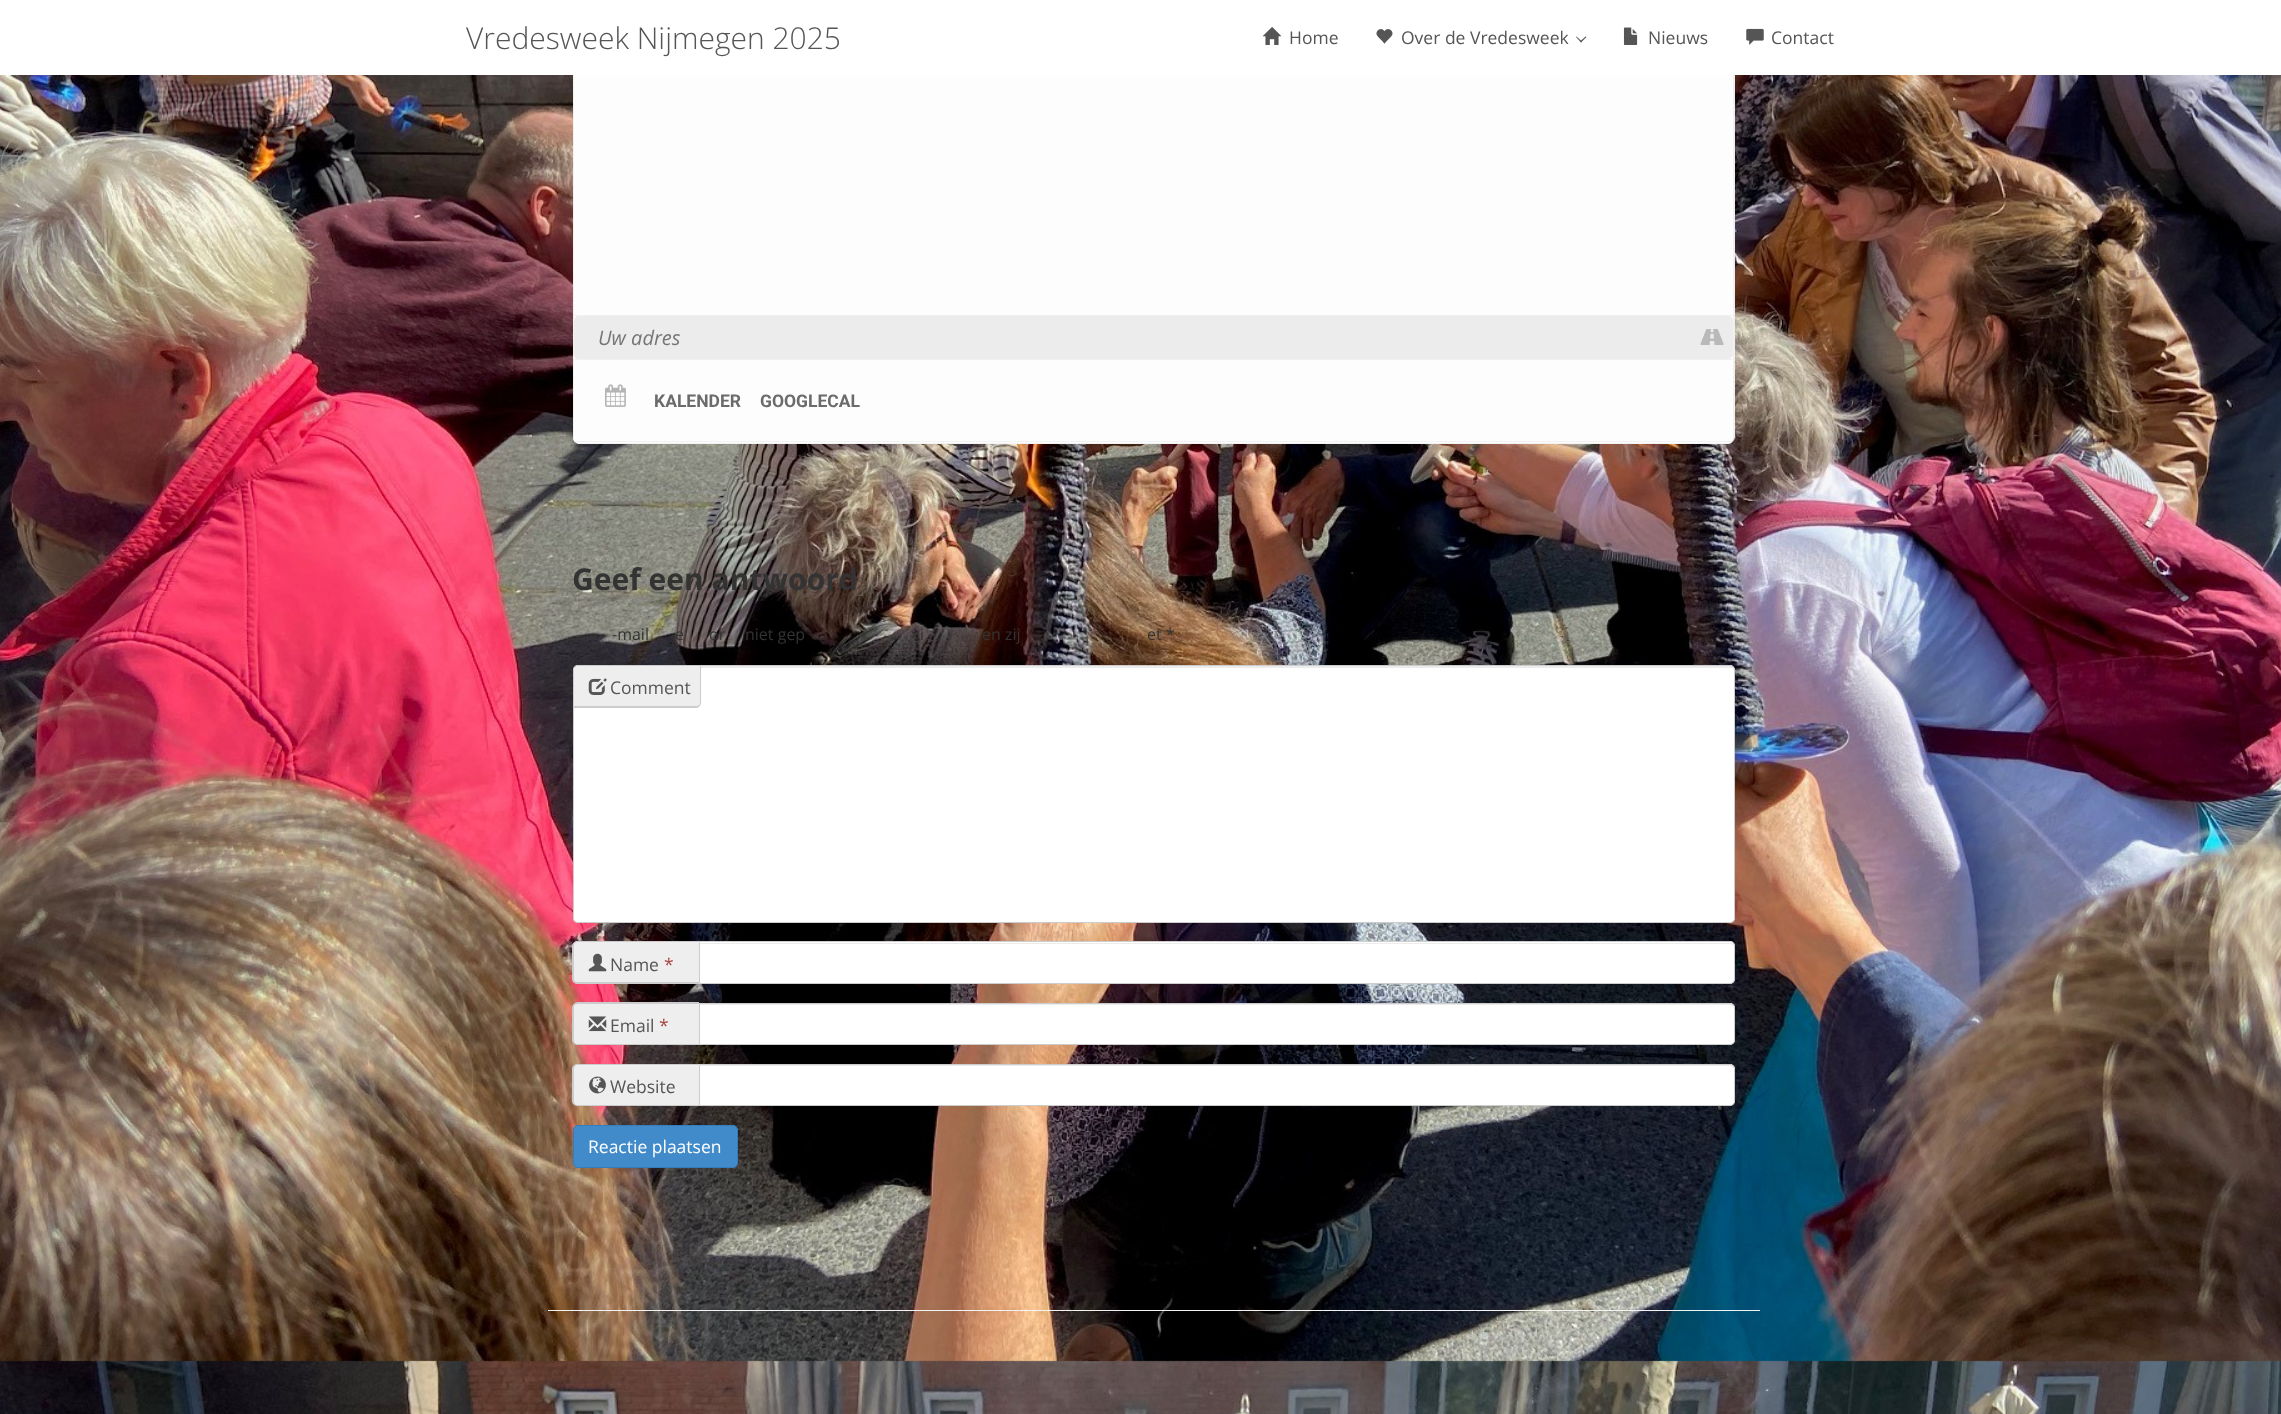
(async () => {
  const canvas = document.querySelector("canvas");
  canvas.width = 2281;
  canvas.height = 1414;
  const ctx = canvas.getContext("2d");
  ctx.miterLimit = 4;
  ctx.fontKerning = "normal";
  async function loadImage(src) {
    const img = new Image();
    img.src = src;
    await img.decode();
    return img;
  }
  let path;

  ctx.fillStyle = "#ffffff";
  ctx.fillRect(0, 0, 2281, 1414);
  ctx.drawImage(await loadImage("img/1.png"), 0, 75, 2281, 1339);
  ctx.fillStyle = "#efeeee";
  path = new Path2D("M580-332C577-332 574-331 573-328C575-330 577-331 580-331H1728C1731-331 1734-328 1734-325V436C1734 440 1731 444 1728 444C1732 444 1735 440 1735 436V-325C1735-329 1732-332 1728-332Z");
  ctx.fill(path);
  ctx.fillStyle = "#fdfdfd";
  path = new Path2D("M573-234H1734V436C1734 440 1731 444 1728 444H580C577 444 574 442 573 439V438Z");
  ctx.fill(path);
  ctx.fillStyle = "#f1f1f1";
  path = new Path2D("M1733-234H1734V436L1733 440Z");
  ctx.fill(path);
  path = new Path2D("M573-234H574V441L573 438Z");
  ctx.fill(path);
  ctx.fillStyle = "#ffffff";
  ctx.fillRect(573, 0, 1162, 75);
  ctx.drawImage(await loadImage("img/2.png"), 1262, 27, 20, 18);
  ctx.drawImage(await loadImage("img/3.png"), 1376, 29, 17, 15);
  ctx.fillStyle = "#555555";
  path = new Path2D("M1585.5 36.5L1586.5 37L1581 42.5L1580 41.5Z");
  ctx.fill(path);
  path = new Path2D("M1576.5 36.5L1582 41.5L1581 42.5L1576 37Z");
  ctx.fill(path);
  ctx.drawImage(await loadImage("img/4.png"), 1623, 27, 15, 18);
  ctx.drawImage(await loadImage("img/5.png"), 1746, 28, 18, 17);
  ctx.fillStyle = "#f3f3f3";
  ctx.fillRect(548, 1310, 1212, 1);
  ctx.fillStyle = "#f1f1f1";
  path = new Path2D("M1730 443L1728 444H580L577 443Z");
  ctx.fill(path);
  ctx.fillRect(574, 315, 1159, 1);
  ctx.fillRect(574, 359, 1159, 1);
  ctx.fillStyle = "#ececec";
  path = new Path2D("M579 316C576 316 574 318 574 321V354C574 357 576 359 579 359H1728C1729 359 1730 359 1731 358C1732 357 1733 355 1733 354V321C1733 318 1731 316 1728 316Z");
  ctx.fill(path);
  ctx.drawImage(await loadImage("img/6.png"), 1700, 329, 24, 16);
  ctx.fillStyle = "#fdfdfd";
  path = new Path2D("M574 360H1733V440L1730 443H577L574 441Z");
  ctx.fill(path);
  ctx.fillStyle = "#f1f1f1";
  path = new Path2D("M575 442L574 441H1732V442Z");
  ctx.fill(path);
  ctx.drawImage(await loadImage("img/7.png"), 605, 384, 21, 23);
  ctx.fillStyle = "#ffffff";
  ctx.beginPath();
  ctx.roundRect(573, 665, 1162, 258, 5);
  ctx.fill();
  ctx.fillStyle = "#ececec";
  path = new Path2D("M578 668H1730C1732 668 1734 669 1734 671C1734 668 1733 666 1730 666H578C575 666 574 668 574 671C574 669 575 668 578 668Z");
  ctx.fill(path);
  ctx.beginPath();
  ctx.roundRect(573.5, 665.5, 1161, 257, 4.5);
  ctx.strokeStyle = "#cccccc";
  ctx.stroke();
  ctx.fillStyle = "#eeeeee";
  ctx.beginPath();
  ctx.roundRect(574, 666, 126, 40, [5, 0, 4, 0]);
  ctx.fill();
  ctx.fillStyle = "#cccccc";
  path = new Path2D("M579 666H701V702C701 705 699 708 696 708H574V671C574 668 576 666 579 666ZM579 666H700V702C700 705 698 706 696 706H574V671C574 668 576 666 579 666Z");
  ctx.fill(path, "evenodd");
  ctx.drawImage(await loadImage("img/8.png"), 588, 678, 19, 17);
  ctx.fillStyle = "#eeeeee";
  ctx.beginPath();
  ctx.roundRect(573, 941, 126, 43, [5, 0, 0, 5]);
  ctx.fill();
  ctx.fillStyle = "#cccccc";
  path = new Path2D("M578 941H699V984H578C575 984 572 982 572 979V946C572 943 575 941 578 941ZM578 942H699V982H578C575 982 574 981 574 979V946C574 944 575 942 578 942Z");
  ctx.fill(path, "evenodd");
  ctx.drawImage(await loadImage("img/9.png"), 588, 953, 19, 19);
  ctx.fillStyle = "#ffffff";
  ctx.beginPath();
  ctx.roundRect(699, 941, 1036, 43, [0, 5, 5, 0]);
  ctx.fill();
  ctx.fillStyle = "#ececec";
  path = new Path2D("M700 944H1730C1732 944 1734 945 1734 948C1734 945 1733 943 1730 943H700Z");
  ctx.fill(path);
  ctx.beginPath();
  ctx.roundRect(699.5, 941.5, 1035, 42, [0, 4.5, 4.5, 0]);
  ctx.stroke();
  ctx.fillStyle = "#eeeeee";
  ctx.beginPath();
  ctx.roundRect(573, 1003, 126, 42, [5, 0, 0, 5]);
  ctx.fill();
  ctx.fillStyle = "#cccccc";
  path = new Path2D("M578 1002H699V1045H578C575 1045 572 1043 572 1040V1008C572 1005 575 1002 578 1002ZM578 1004H699V1044H578C575 1044 574 1042 574 1040V1008C574 1005 575 1004 578 1004Z");
  ctx.fill(path, "evenodd");
  ctx.drawImage(await loadImage("img/10.png"), 588, 1016, 19, 16);
  ctx.fillStyle = "#ffffff";
  ctx.beginPath();
  ctx.roundRect(699, 1003, 1036, 42, [0, 5, 5, 0]);
  ctx.fill();
  ctx.fillStyle = "#ececec";
  path = new Path2D("M700 1005H1730C1732 1005 1734 1007 1734 1009C1734 1006 1733 1004 1730 1004H700Z");
  ctx.fill(path);
  ctx.beginPath();
  ctx.roundRect(699.5, 1003.5, 1035, 41, [0, 4.5, 4.5, 0]);
  ctx.stroke();
  ctx.fillStyle = "#eeeeee";
  ctx.beginPath();
  ctx.roundRect(573, 1064, 126, 42, [5, 0, 0, 5]);
  ctx.fill();
  ctx.fillStyle = "#cccccc";
  path = new Path2D("M578 1064H699V1106H578C575 1106 572 1104 572 1101V1069C572 1066 575 1064 578 1064ZM578 1065H699V1105H578C575 1105 574 1103 574 1101V1069C574 1067 575 1065 578 1065Z");
  ctx.fill(path, "evenodd");
  ctx.drawImage(await loadImage("img/11.png"), 589, 1076, 17, 18);
  ctx.fillStyle = "#ffffff";
  ctx.beginPath();
  ctx.roundRect(699, 1064, 1036, 42, [0, 5, 5, 0]);
  ctx.fill();
  ctx.fillStyle = "#ececec";
  path = new Path2D("M700 1066H1730C1732 1066 1734 1068 1734 1070C1734 1067 1733 1065 1730 1065H700Z");
  ctx.fill(path);
  ctx.beginPath();
  ctx.roundRect(699.5, 1064.5, 1035, 41, [0, 4.5, 4.5, 0]);
  ctx.stroke();
  ctx.fillStyle = "#428bca";
  ctx.beginPath();
  ctx.roundRect(573.5, 1125.5, 164, 42, 4.5);
  ctx.fill();
  ctx.strokeStyle = "#357ebd";
  ctx.stroke();
  ctx.font = "300 30px Open Sans";
  ctx.fillStyle = "#555555";
  ctx.fillText("Vredesweek Nijmegen 2025", 466, 49);
  ctx.font = "17.5px Open Sans";
  for (const [text, x, y] of [
    ["Home", 1289, 44],
    ["Over de Vredesweek", 1401, 44],
    ["Nieuws", 1648, 44],
    ["Contact", 1771, 44],
  ]) {
    ctx.fillText(text, x, y);
  }
  ctx.font = "italic 20px Open Sans";
  ctx.fillStyle = "#757575";
  ctx.fillText("Uw adres", 598, 345);
  ctx.font = "bold 17.5px Roboto";
  ctx.fillStyle = "#6b6b6b";
  ctx.fillText("KALENDER", 654, 407);
  ctx.fillText("GOOGLECAL", 760, 407);
  ctx.font = "bold 30px Open Sans";
  ctx.fillStyle = "#333333";
  ctx.fillText("Geef een antwoord", 572, 590);
  ctx.font = "16px Open Sans";
  for (const [text, x, y] of [
    ["-mail", 612, 640],
    ["e", 675, 640],
    ["or", 709, 640],
    ["niet gep", 745, 640],
    ["i", 920, 640],
    ["en zij", 982, 640],
    ["et *", 1147, 640],
  ]) {
    ctx.fillText(text, x, y);
  }
  ctx.font = "17.5px Open Sans";
  ctx.fillStyle = "#555555";
  ctx.fillText("Comment", 610, 694);
  ctx.fillText("Name", 610, 971);
  ctx.fillStyle = "#a94442";
  ctx.fillText("*", 664, 971);
  ctx.fillStyle = "#555555";
  ctx.fillText("Email", 610, 1032);
  ctx.fillStyle = "#a94442";
  ctx.fillText("*", 659, 1032);
  ctx.fillStyle = "#555555";
  ctx.fillText("Website", 610, 1093);
  ctx.fillStyle = "#ffffff";
  ctx.fillText("Reactie plaatsen", 588, 1153);
})();
